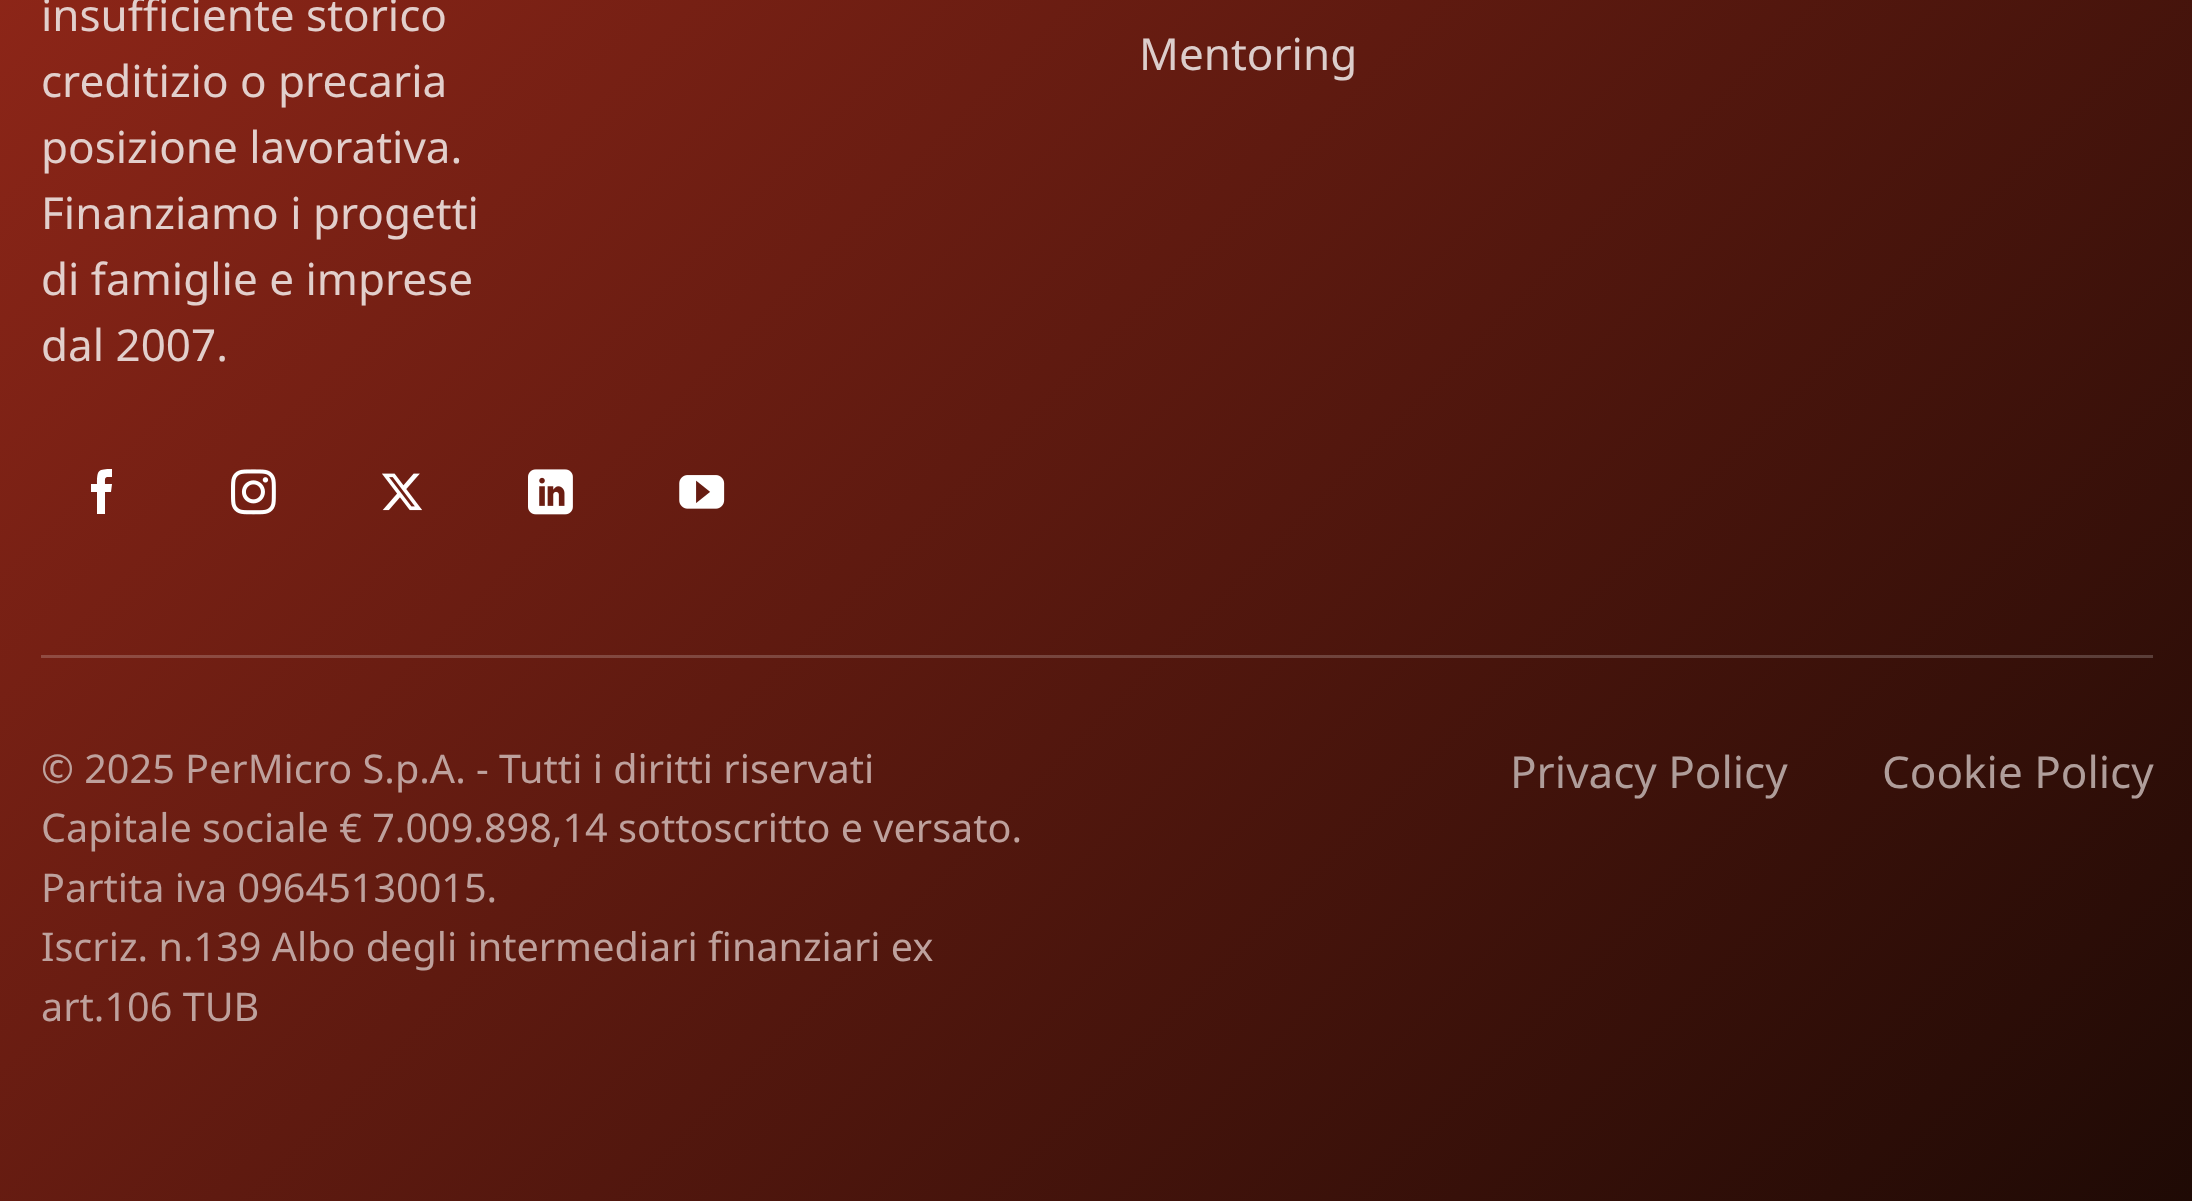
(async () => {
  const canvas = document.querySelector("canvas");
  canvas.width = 2192;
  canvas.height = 1201;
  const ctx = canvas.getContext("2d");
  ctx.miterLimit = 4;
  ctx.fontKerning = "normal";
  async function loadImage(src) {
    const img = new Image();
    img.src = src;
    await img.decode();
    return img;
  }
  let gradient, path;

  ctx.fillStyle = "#ffffff";
  ctx.fillRect(0, 0, 2192, 1201);
  gradient = ctx.createLinearGradient(19, -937, 2176, 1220);
  gradient.addColorStop(0, "#aa2d1d");
  gradient.addColorStop(1, "#1f0a05");
  ctx.fillStyle = gradient;
  ctx.fillRect(0, 0, 2192, 1201);
  gradient = ctx.createLinearGradient(19, -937, 2176, 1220);
  gradient.addColorStop(0, "#ba5649");
  gradient.addColorStop(1, "#4b3a36");
  ctx.fillStyle = gradient;
  ctx.fillRect(41, 655, 2112, 3);
  ctx.fillStyle = "#ffffff";
  path = new Path2D("M105 514H97V492H91V484H97C97 470 98 469 112 469V477C104 477 105 477 105 484H112L111 492H105Z");
  ctx.fill(path);
  ctx.drawImage(await loadImage("img/1.png"), 231, 469, 45, 46);
  ctx.drawImage(await loadImage("img/2.png"), 382, 473, 40, 38);
  ctx.drawImage(await loadImage("img/3.png"), 528, 469, 45, 46);
  ctx.drawImage(await loadImage("img/4.png"), 679, 475, 46, 34);
  ctx.font = "44px Noto Sans";
  ctx.fillStyle = "#e2cfcc";
  for (const [text, x, y] of [
    ["insufficiente storico", 41, 31],
    ["creditizio o precaria", 41, 97],
    ["posizione lavorativa.", 41, 163],
    ["Finanziamo i progetti", 41, 229],
    ["di famiglie e imprese", 41, 295],
    ["dal 2007.", 41, 361],
  ]) {
    ctx.fillText(text, x, y);
  }
  ctx.fillStyle = "#dccdcb";
  ctx.fillText("Mentoring", 1139, 70);
  ctx.font = "39.6px Noto Sans";
  ctx.fillStyle = "#bea19d";
  for (const [text, x, y] of [
    ["© 2025 PerMicro S.p.A. - Tutti i diritti riservati", 41, 783],
    ["Capitale sociale € 7.009.898,14 sottoscritto e versato.", 41, 842],
    ["Partita iva 09645130015.", 41, 902],
    ["Iscriz. n.139 Albo degli intermediari finanziari ex", 41, 961],
    ["art.106 TUB", 41, 1021],
  ]) {
    ctx.fillText(text, x, y);
  }
  ctx.font = "44px Noto Sans";
  ctx.fillStyle = "#af9d9a";
  ctx.fillText("Privacy Policy", 1510, 788);
  ctx.fillText("Cookie Policy", 1882, 788);
})();
